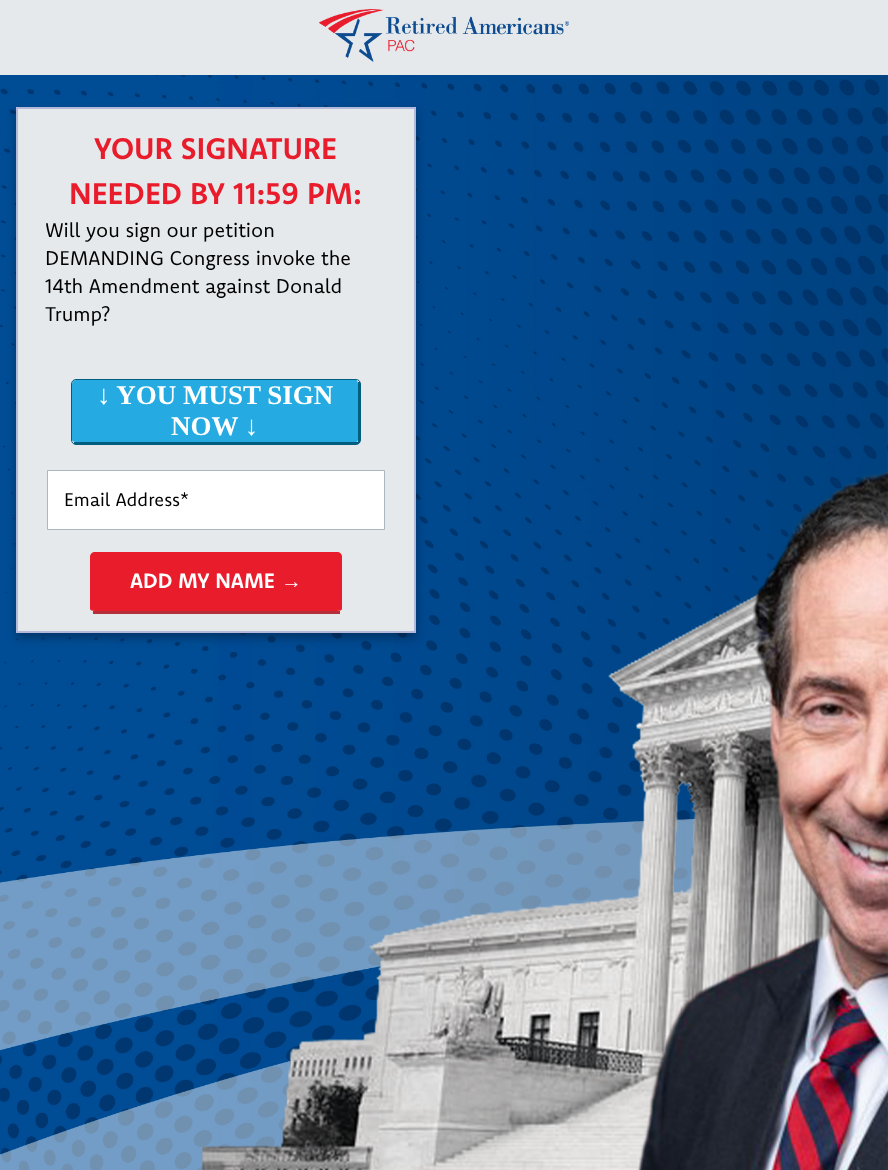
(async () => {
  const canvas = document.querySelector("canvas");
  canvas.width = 888;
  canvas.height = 1170;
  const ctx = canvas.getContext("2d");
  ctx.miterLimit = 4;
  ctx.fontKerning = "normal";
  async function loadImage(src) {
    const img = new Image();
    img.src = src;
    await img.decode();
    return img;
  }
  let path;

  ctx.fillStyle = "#ffffff";
  ctx.fillRect(0, 0, 888, 1170);
  ctx.fillStyle = "#e5e9ec";
  ctx.fillRect(0, 0, 888, 75);
  ctx.drawImage(await loadImage("img/1.png"), 319, 9, 250, 53);
  ctx.drawImage(await loadImage("img/2.png"), 0, 75, 888, 1095);
  ctx.fillStyle = "rgba(0, 0, 0, 0.3)";
  ctx.filter = "blur(5px)";
  ctx.beginPath();
  ctx.rect(16, 112, 400, 526);
  ctx.fill();
  ctx.filter = "none";
  ctx.fillStyle = "#e5e9ec";
  ctx.fillRect(18, 109, 396, 238);
  ctx.strokeStyle = "#b4b9db";
  ctx.lineWidth = 2;
  ctx.strokeRect(17, 108, 398, 524);
  ctx.fillRect(18, 347, 396, 284);
  ctx.fillStyle = "#25abe2";
  path = new Path2D("M76 380H356C357 380 358 382 358 384V440C358 441 357 442 356 442H76C74 442 72 441 72 440V384C72 382 74 380 76 380Z");
  ctx.fill(path);
  ctx.beginPath();
  ctx.roundRect(71.5, 379.5, 289, 65, 4.5);
  ctx.strokeStyle = "#035d7f";
  ctx.lineWidth = 1;
  ctx.stroke();
  ctx.fillStyle = "#035d7f";
  ctx.fillRect(358, 382, 2, 61);
  ctx.fillRect(74, 442, 285, 2);
  ctx.fillStyle = "#ffffff";
  ctx.beginPath();
  ctx.rect(47.5, 470.5, 337, 59);
  ctx.fill();
  ctx.strokeStyle = "#aab7c1";
  ctx.stroke();
  ctx.fillStyle = "#e91c2c";
  path = new Path2D("M95 552H337C340 552 342 554 342 557V609C342 610 340 611 337 611H95C92 611 90 610 90 609V557C90 554 92 552 95 552Z");
  ctx.fill(path);
  ctx.fillStyle = "#b52f3a";
  ctx.fillRect(93, 611, 247, 3);
  ctx.font = "bold 30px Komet";
  ctx.fillStyle = "#e91c2c";
  ctx.fillText("YOUR SIGNATURE", 94, 159);
  ctx.fillText("NEEDED BY 11:59 PM:", 69, 204);
  ctx.font = "20px Komet";
  ctx.fillStyle = "#000000";
  for (const [text, x, y] of [
    ["Will you sign our petition", 45, 237],
    ["DEMANDING Congress invoke the", 45, 265],
    ["14th Amendment against Donald", 45, 293],
    ["Trump?", 45, 321],
  ]) {
    ctx.fillText(text, x, y);
  }
  ctx.font = "bold 27px Liberation Serif";
  ctx.fillStyle = "#ffffff";
  ctx.fillText("↓ YOU MUST SIGN", 97, 404);
  ctx.fillText("NOW ↓", 171, 435);
  ctx.font = "18.5px Komet";
  ctx.fillStyle = "#000000";
  ctx.fillText("Email Address*", 64, 506);
  ctx.font = "bold 20.75px Komet";
  ctx.fillStyle = "#ffffff";
  ctx.fillText("ADD MY NAME", 130, 588);
  ctx.font = "bold 20.75px Liberation Sans";
  ctx.fillText("→", 281, 588);
})();
